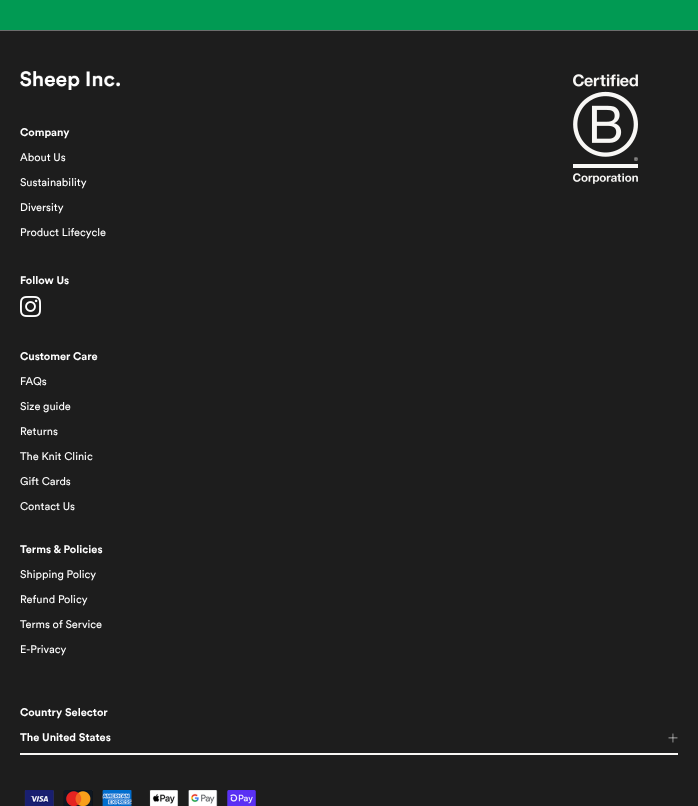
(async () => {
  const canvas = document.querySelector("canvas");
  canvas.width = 698;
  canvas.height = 806;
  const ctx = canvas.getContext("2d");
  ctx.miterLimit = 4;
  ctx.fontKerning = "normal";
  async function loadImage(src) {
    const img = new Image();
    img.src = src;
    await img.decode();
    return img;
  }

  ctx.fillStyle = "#019a53";
  ctx.fillRect(0, 0, 698, 806);
  ctx.fillStyle = "#1d1d1d";
  ctx.fillRect(0, 31, 698, 775);
  ctx.fillStyle = "#6c6c6c";
  ctx.fillRect(0, 30, 698, 1);
  ctx.drawImage(await loadImage("img/1.png"), 20, 71, 100, 19);
  ctx.drawImage(await loadImage("img/2.png"), 573, 74, 65, 110);
  ctx.drawImage(await loadImage("img/3.png"), 20, 296, 21, 21);
  ctx.fillStyle = "#f8f7f5";
  ctx.fillRect(20, 753, 658, 2);
  ctx.drawImage(await loadImage("img/4.png"), 668, 733, 10, 10);
  ctx.drawImage(await loadImage("img/5.png"), 24, 790, 108, 16);
  ctx.drawImage(await loadImage("img/6.png"), 149, 790, 107, 16);
  ctx.font = "bold 11px Circular";
  ctx.fillStyle = "#ffffff";
  ctx.fillText("Company", 20, 136);
  ctx.font = "11px Circular";
  for (const [text, x, y] of [
    ["About Us", 20, 161],
    ["Sustainability", 20, 186],
    ["Diversity", 20, 211],
    ["Product Lifecycle", 20, 236],
  ]) {
    ctx.fillText(text, x, y);
  }
  ctx.font = "bold 11px Circular";
  ctx.fillText("Follow Us", 20, 284);
  ctx.fillText("Customer Care", 20, 360);
  ctx.font = "11px Circular";
  for (const [text, x, y] of [
    ["FAQs", 20, 385],
    ["Size guide", 20, 410],
    ["Returns", 20, 435],
    ["The Knit Clinic", 20, 460],
    ["Gift Cards", 20, 485],
    ["Contact Us", 20, 510],
  ]) {
    ctx.fillText(text, x, y);
  }
  ctx.font = "bold 11px Circular";
  ctx.fillText("Terms & Policies", 20, 553);
  ctx.font = "11px Circular";
  for (const [text, x, y] of [
    ["Shipping Policy", 20, 578],
    ["Refund Policy", 20, 603],
    ["Terms of Service", 20, 628],
    ["E-Privacy", 20, 653],
  ]) {
    ctx.fillText(text, x, y);
  }
  ctx.font = "bold 11px Circular";
  ctx.fillText("Country Selector", 20, 716);
  ctx.fillText("The United States", 20, 741);
})();
